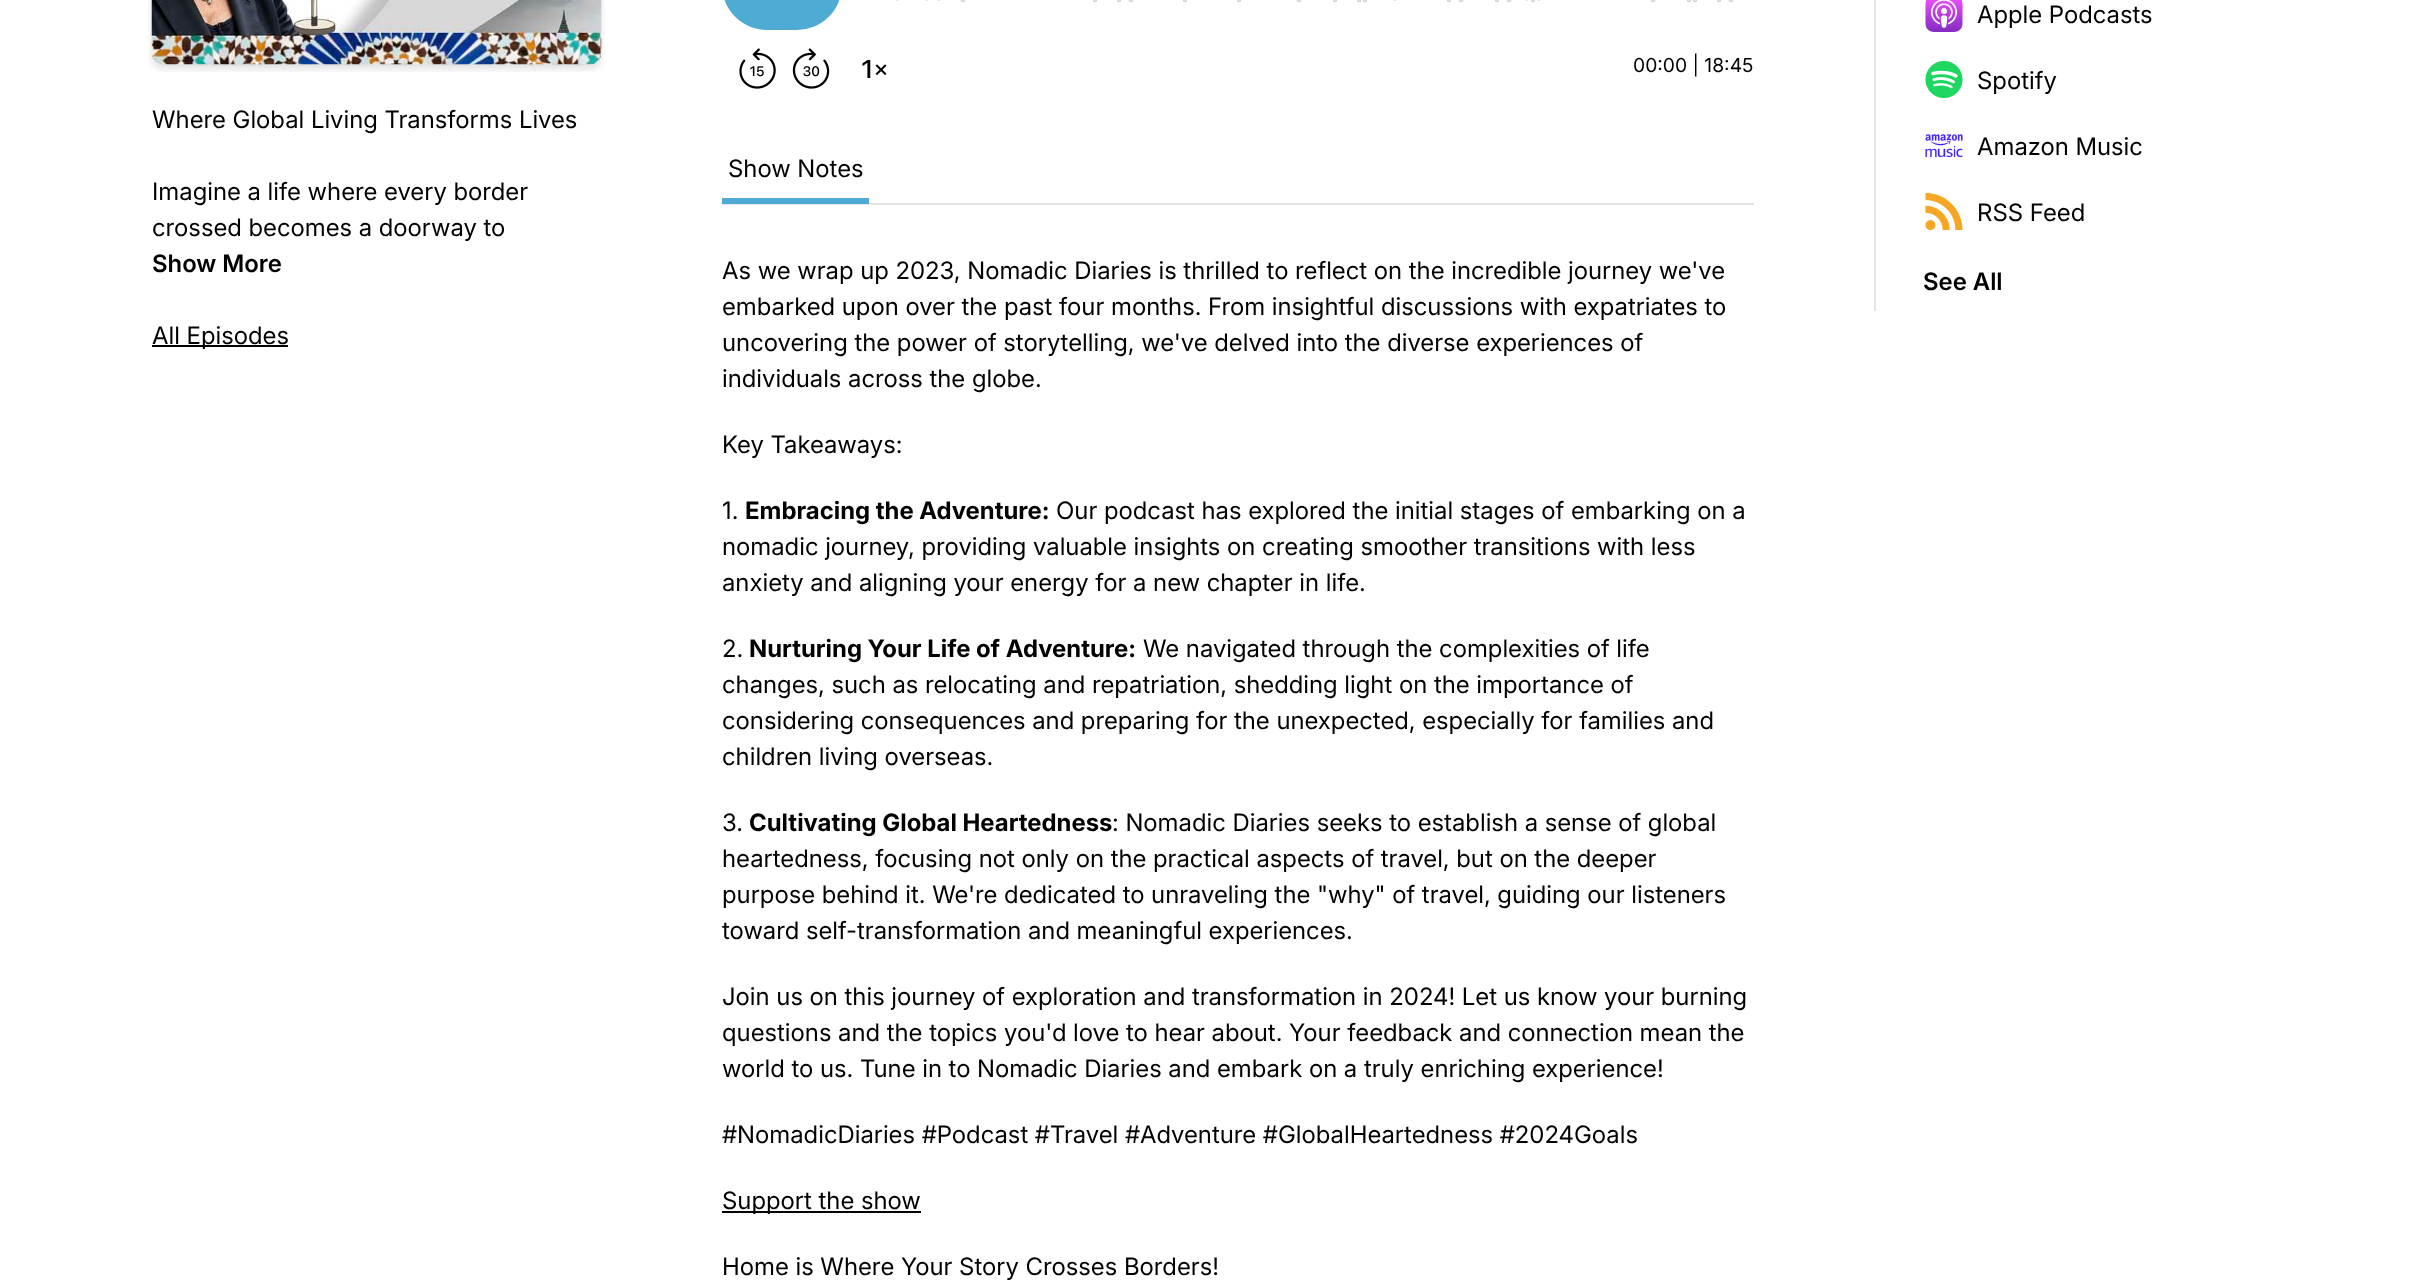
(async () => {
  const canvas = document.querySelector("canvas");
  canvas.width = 2414;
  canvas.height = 1284;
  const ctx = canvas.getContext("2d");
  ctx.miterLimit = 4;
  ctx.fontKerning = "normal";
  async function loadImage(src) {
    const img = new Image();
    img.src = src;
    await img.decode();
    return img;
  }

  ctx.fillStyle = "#ffffff";
  ctx.fillRect(0, 0, 2414, 1284);
  ctx.drawImage(await loadImage("img/1.png"), 148, 0, 457, 72);
  ctx.fillStyle = "#000000";
  ctx.fillRect(152, 345, 136, 2);
  ctx.drawImage(await loadImage("img/2.png"), 739, 48, 37, 41);
  ctx.drawImage(await loadImage("img/3.png"), 792, 48, 38, 41);
  ctx.drawImage(await loadImage("img/4.png"), 862, 60, 25, 18);
  ctx.fillStyle = "#4eacd4";
  ctx.beginPath();
  ctx.roundRect(722, -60, 120, 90, 60);
  ctx.fill();
  ctx.drawImage(await loadImage("img/5.png"), 895, 0, 839, 3);
  for (const [x, y, w, h, color] of [
    [722, 203, 1032, 2, "#e4e5e6"],
    [722, 198, 147, 6, "#4eacd4"],
    [722, 1211, 199, 2, "#000000"],
    [1874, 0, 2, 311, "#e4e5e6"],
  ]) {
    ctx.fillStyle = color;
    ctx.fillRect(x, y, w, h);
  }
  ctx.drawImage(await loadImage("img/6.png"), 1925, 0, 38, 32);
  ctx.drawImage(await loadImage("img/7.png"), 1925, 61, 38, 37);
  ctx.drawImage(await loadImage("img/8.png"), 1925, 134, 38, 24);
  ctx.drawImage(await loadImage("img/9.png"), 1925, 193, 38, 37);
  ctx.font = "24px Inter";
  ctx.fillStyle = "#000000";
  for (const [text, x, y] of [
    ["Where Global Living Transforms Lives", 152, 128],
    ["Imagine a life where every border", 152, 200],
    ["crossed becomes a doorway to", 152, 236],
  ]) {
    ctx.fillText(text, x, y);
  }
  ctx.font = "600 24px Inter";
  ctx.fillText("Show More", 152, 272);
  ctx.font = "24px Inter";
  ctx.fillText("All Episodes", 152, 344);
  ctx.font = "19.25px 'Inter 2'";
  ctx.fillText("00:00 | 18:45", 1633, 72);
  ctx.font = "24px Inter";
  for (const [text, x, y] of [
    ["Show Notes", 728, 177],
    ["As we wrap up 2023, Nomadic Diaries is thrilled to reflect on the incredible journey we've", 722, 279],
    ["embarked upon over the past four months. From insightful discussions with expatriates to", 722, 315],
    ["uncovering the power of storytelling, we've delved into the diverse experiences of", 722, 351],
    ["individuals across the globe.", 722, 387],
    ["Key Takeaways:", 722, 453],
    ["1.", 722, 519],
  ]) {
    ctx.fillText(text, x, y);
  }
  ctx.font = "bold 24px Inter";
  ctx.fillText("Embracing the Adventure:", 745, 519);
  ctx.font = "24px Inter";
  for (const [text, x, y] of [
    ["Our podcast has explored the initial stages of embarking on a", 1056, 519],
    ["nomadic journey, providing valuable insights on creating smoother transitions with less", 722, 555],
    ["anxiety and aligning your energy for a new chapter in life.", 722, 591],
    ["2.", 722, 657],
  ]) {
    ctx.fillText(text, x, y);
  }
  ctx.font = "bold 24px Inter";
  ctx.fillText("Nurturing Your Life of Adventure:", 749, 657);
  ctx.font = "24px Inter";
  for (const [text, x, y] of [
    ["We navigated through the complexities of life", 1143, 657],
    ["changes, such as relocating and repatriation, shedding light on the importance of", 722, 693],
    ["considering consequences and preparing for the unexpected, especially for families and", 722, 729],
    ["children living overseas.", 722, 765],
    ["3.", 722, 831],
  ]) {
    ctx.fillText(text, x, y);
  }
  ctx.font = "bold 24px Inter";
  ctx.fillText("Cultivating Global Heartedness", 749, 831);
  ctx.font = "24px Inter";
  for (const [text, x, y] of [
    [": Nomadic Diaries seeks to establish a sense of global", 1112, 831],
    ["heartedness, focusing not only on the practical aspects of travel, but on the deeper", 722, 867],
    ["purpose behind it. We're dedicated to unraveling the \"why\" of travel, guiding our listeners", 722, 903],
    ["toward self-transformation and meaningful experiences.", 722, 939],
    ["Join us on this journey of exploration and transformation in 2024! Let us know your burning", 722, 1005],
    ["questions and the topics you'd love to hear about. Your feedback and connection mean the", 722, 1041],
    ["world to us. Tune in to Nomadic Diaries and embark on a truly enriching experience!", 722, 1077],
    ["#NomadicDiaries #Podcast #Travel #Adventure #GlobalHeartedness #2024Goals", 722, 1143],
    ["Support the show", 722, 1209],
    ["Home is Where Your Story Crosses Borders!", 722, 1275],
    ["Apple Podcasts", 1977, 23],
    ["Spotify", 1977, 89],
    ["Amazon Music", 1977, 155],
    ["RSS Feed", 1977, 221],
  ]) {
    ctx.fillText(text, x, y);
  }
  ctx.font = "600 24px Inter";
  ctx.fillText("See All", 1923, 290);
})();
